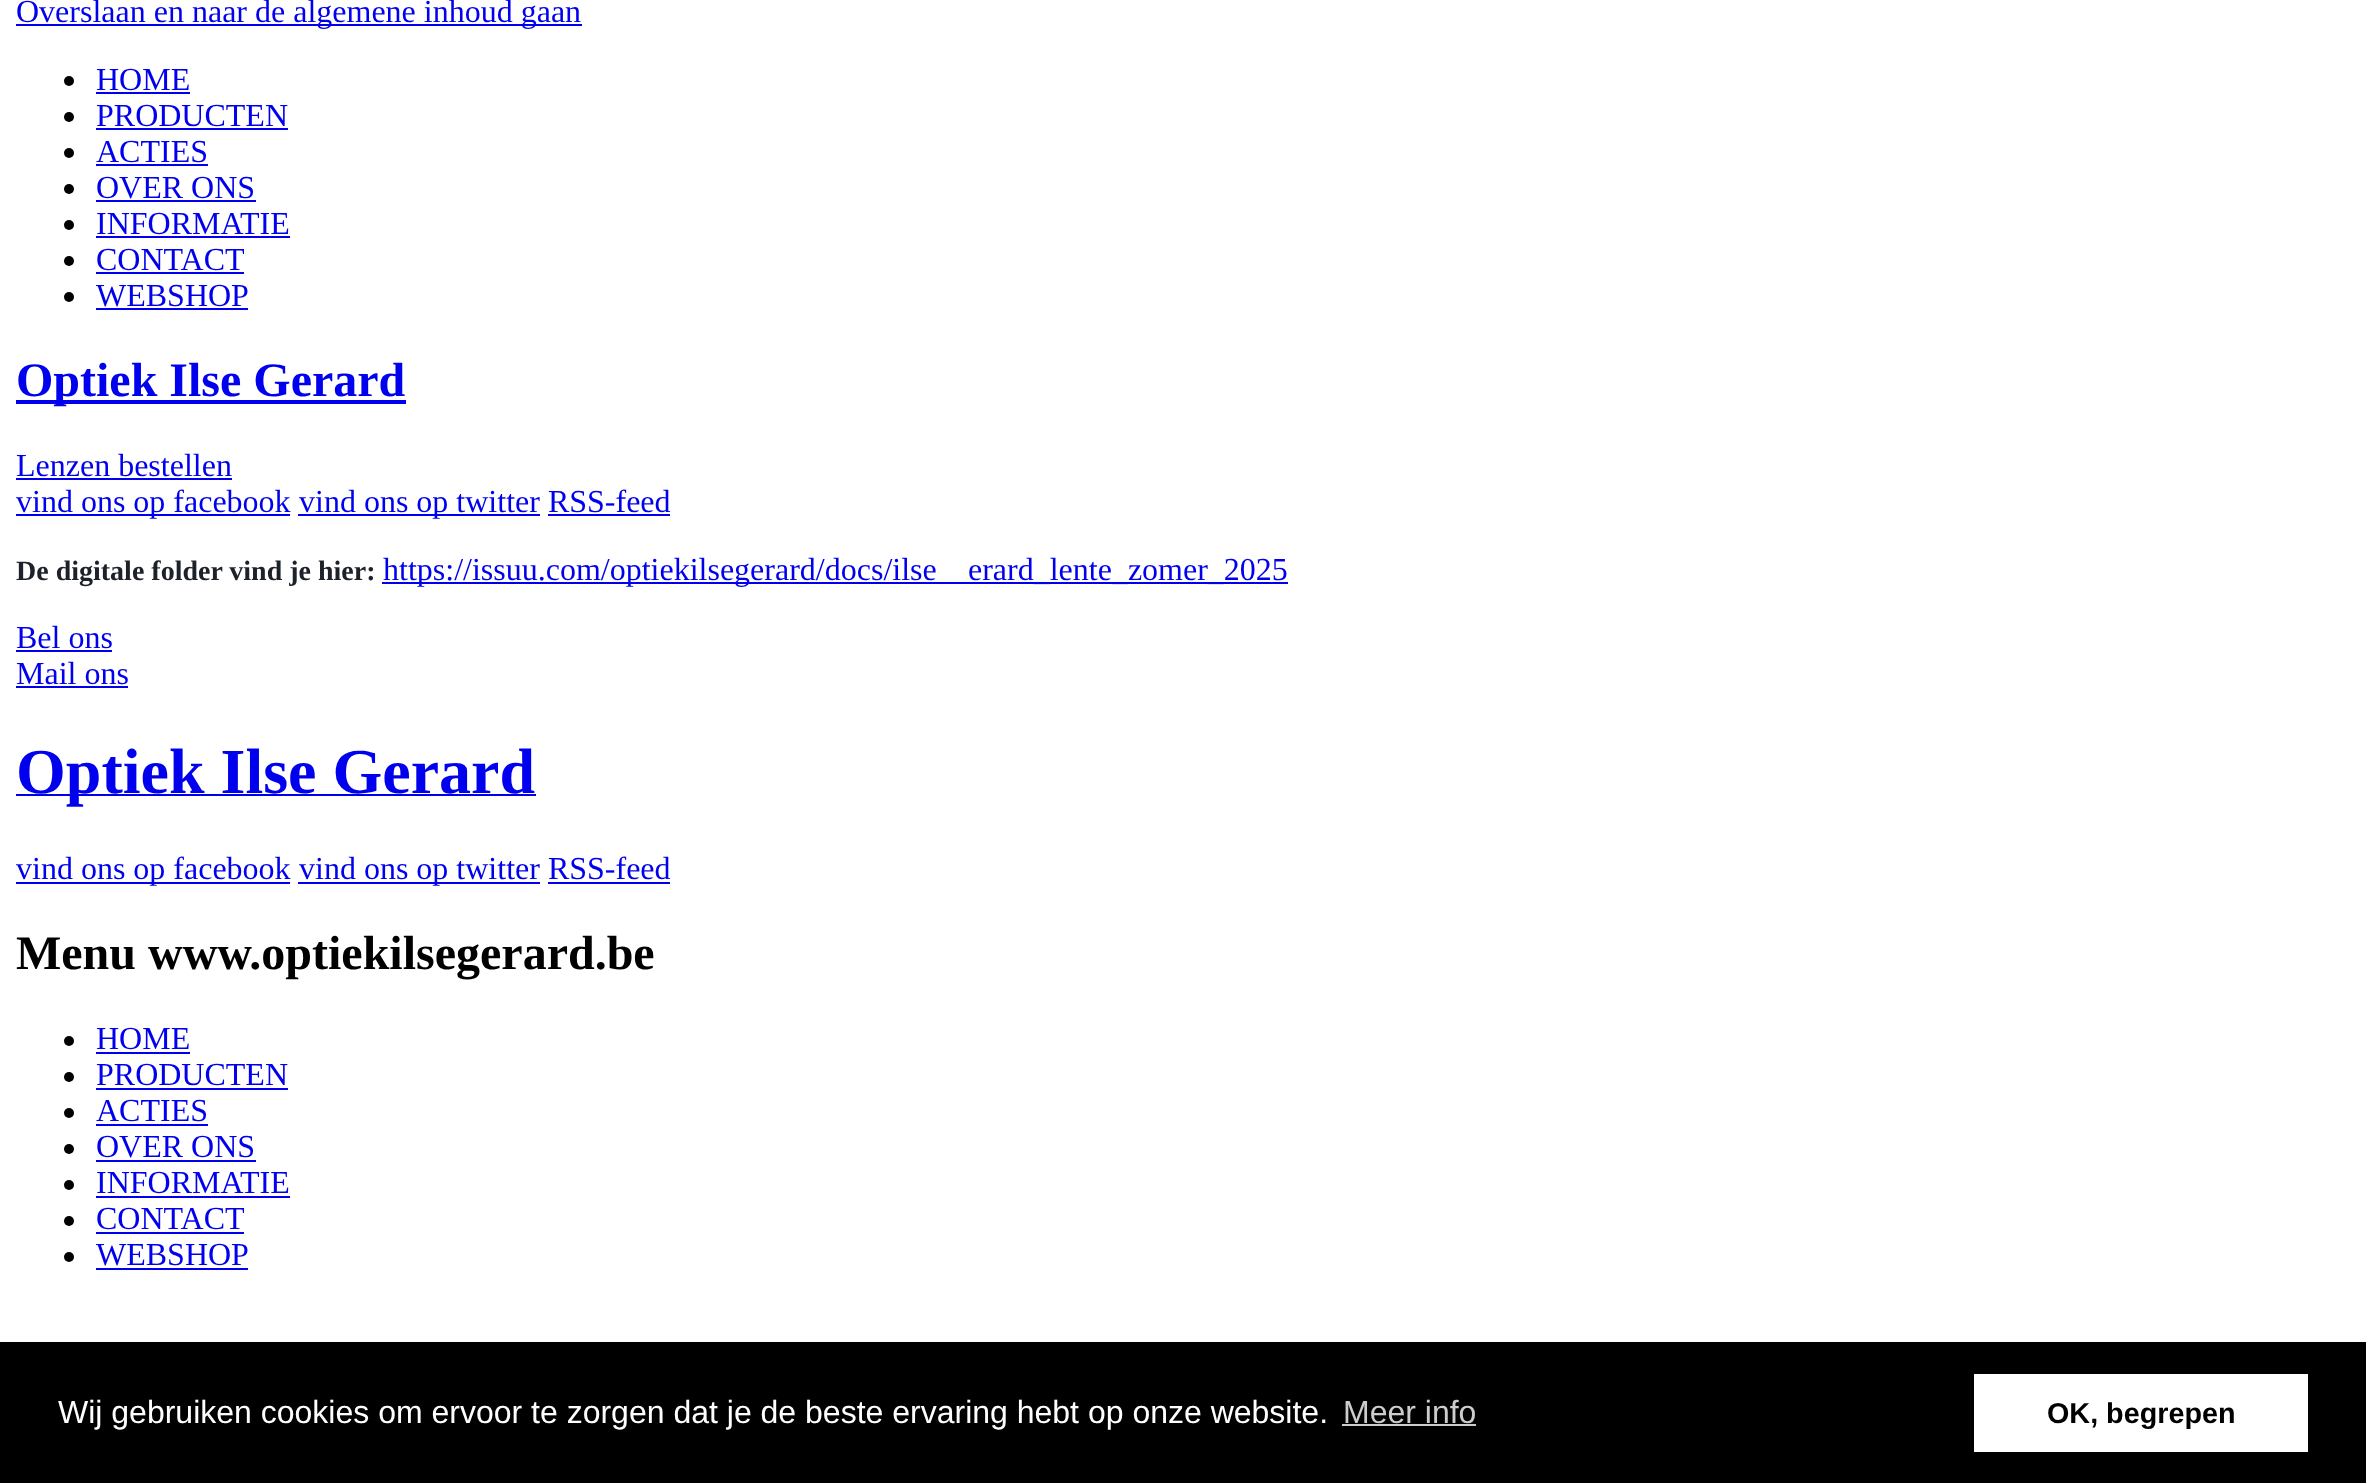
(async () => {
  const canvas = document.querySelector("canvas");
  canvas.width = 2366;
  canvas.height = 1483;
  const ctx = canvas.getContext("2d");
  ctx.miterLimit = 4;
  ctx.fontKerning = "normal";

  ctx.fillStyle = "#ffffff";
  ctx.fillRect(0, 0, 2366, 1483);
  ctx.fillStyle = "#0000ee";
  ctx.fillRect(16, 24, 566, 2);
  ctx.fillStyle = "#000000";
  ctx.beginPath();
  ctx.arc(69, 81, 5, 0, Math.PI * 2);
  ctx.fill();
  ctx.fillStyle = "#0000ee";
  ctx.fillRect(96, 92, 94, 2);
  ctx.fillStyle = "#000000";
  ctx.beginPath();
  ctx.arc(69, 117, 5, 0, Math.PI * 2);
  ctx.fill();
  ctx.fillStyle = "#0000ee";
  ctx.fillRect(96, 128, 192, 2);
  ctx.fillStyle = "#000000";
  ctx.beginPath();
  ctx.arc(69, 153, 5, 0, Math.PI * 2);
  ctx.fill();
  ctx.fillStyle = "#0000ee";
  ctx.fillRect(96, 164, 112, 2);
  ctx.fillStyle = "#000000";
  ctx.beginPath();
  ctx.arc(69, 189, 5, 0, Math.PI * 2);
  ctx.fill();
  ctx.fillStyle = "#0000ee";
  ctx.fillRect(96, 200, 160, 2);
  ctx.fillStyle = "#000000";
  ctx.beginPath();
  ctx.arc(69, 225, 5, 0, Math.PI * 2);
  ctx.fill();
  ctx.fillStyle = "#0000ee";
  ctx.fillRect(96, 236, 194, 2);
  ctx.fillStyle = "#000000";
  ctx.beginPath();
  ctx.arc(69, 261, 5, 0, Math.PI * 2);
  ctx.fill();
  ctx.fillStyle = "#0000ee";
  ctx.fillRect(96, 272, 148, 2);
  ctx.fillStyle = "#000000";
  ctx.beginPath();
  ctx.arc(69, 297, 5, 0, Math.PI * 2);
  ctx.fill();
  for (const [x, y, w, h, color] of [
    [96, 308, 152, 2, "#0000ee"],
    [16, 400, 390, 4, "#0000ee"],
    [16, 478, 216, 2, "#0000ee"],
    [16, 514, 274, 2, "#0000ee"],
    [298, 514, 242, 2, "#0000ee"],
    [548, 514, 122, 2, "#0000ee"],
    [382, 582, 906, 2, "#0000ee"],
    [16, 650, 96, 2, "#0000ee"],
    [16, 686, 112, 2, "#0000ee"],
    [16, 794, 520, 2, "#0000ee"],
    [16, 882, 274, 2, "#0000ee"],
    [298, 882, 242, 2, "#0000ee"],
    [548, 882, 122, 2, "#0000ee"],
  ]) {
    ctx.fillStyle = color;
    ctx.fillRect(x, y, w, h);
  }
  ctx.fillStyle = "#000000";
  ctx.beginPath();
  ctx.arc(69, 1041, 5, 0, Math.PI * 2);
  ctx.fill();
  ctx.fillStyle = "#0000ee";
  ctx.fillRect(96, 1052, 94, 2);
  ctx.fillStyle = "#000000";
  ctx.beginPath();
  ctx.arc(69, 1077, 5, 0, Math.PI * 2);
  ctx.fill();
  ctx.fillStyle = "#0000ee";
  ctx.fillRect(96, 1088, 192, 2);
  ctx.fillStyle = "#000000";
  ctx.beginPath();
  ctx.arc(69, 1113, 5, 0, Math.PI * 2);
  ctx.fill();
  ctx.fillStyle = "#0000ee";
  ctx.fillRect(96, 1124, 112, 2);
  ctx.fillStyle = "#000000";
  ctx.beginPath();
  ctx.arc(69, 1149, 5, 0, Math.PI * 2);
  ctx.fill();
  ctx.fillStyle = "#0000ee";
  ctx.fillRect(96, 1160, 160, 2);
  ctx.fillStyle = "#000000";
  ctx.beginPath();
  ctx.arc(69, 1185, 5, 0, Math.PI * 2);
  ctx.fill();
  ctx.fillStyle = "#0000ee";
  ctx.fillRect(96, 1196, 194, 2);
  ctx.fillStyle = "#000000";
  ctx.beginPath();
  ctx.arc(69, 1221, 5, 0, Math.PI * 2);
  ctx.fill();
  ctx.fillStyle = "#0000ee";
  ctx.fillRect(96, 1232, 148, 2);
  ctx.fillStyle = "#000000";
  ctx.beginPath();
  ctx.arc(69, 1257, 5, 0, Math.PI * 2);
  ctx.fill();
  for (const [x, y, w, h, color] of [
    [96, 1268, 152, 2, "#0000ee"],
    [0, 1342, 2366, 141, "#000000"],
    [1342, 1424, 134, 2, "#cccccc"],
    [1974, 1374, 334, 78, "#ffffff"],
  ]) {
    ctx.fillStyle = color;
    ctx.fillRect(x, y, w, h);
  }
  ctx.font = "32px Liberation Serif";
  ctx.fillStyle = "#0000ee";
  for (const [text, x, y] of [
    ["Overslaan en naar de algemene inhoud gaan", 16, 22],
    ["HOME", 96, 90],
    ["PRODUCTEN", 96, 126],
    ["ACTIES", 96, 162],
    ["OVER ONS", 96, 198],
    ["INFORMATIE", 96, 234],
    ["CONTACT", 96, 270],
    ["WEBSHOP", 96, 306],
  ]) {
    ctx.fillText(text, x, y);
  }
  ctx.font = "bold 48px Liberation Serif";
  ctx.fillText("Optiek Ilse Gerard", 16, 396);
  ctx.font = "32px Liberation Serif";
  for (const [text, x, y] of [
    ["Lenzen bestellen", 16, 476],
    ["vind ons op facebook", 16, 512],
    ["vind ons op twitter RSS-feed", 299, 512],
  ]) {
    ctx.fillText(text, x, y);
  }
  ctx.font = "bold 28px Liberation Serif";
  ctx.fillStyle = "#1d2129";
  ctx.fillText("De digitale folder vind je hier:", 16, 580);
  ctx.font = "32px Liberation Serif";
  ctx.fillStyle = "#0000ee";
  for (const [text, x, y] of [
    ["https://issuu.com/optiekilsegerard/docs/ilse", 383, 580],
    ["erard_lente_zomer_2025", 968, 580],
    ["Bel ons", 16, 648],
    ["Mail ons", 16, 684],
  ]) {
    ctx.fillText(text, x, y);
  }
  ctx.font = "bold 64px Liberation Serif";
  ctx.fillText("Optiek Ilse Gerard", 16, 793);
  ctx.font = "32px Liberation Serif";
  ctx.fillText("vind ons op facebook", 16, 879);
  ctx.fillText("vind ons op twitter RSS-feed", 299, 879);
  ctx.font = "bold 48px Liberation Serif";
  ctx.fillStyle = "#000000";
  ctx.fillText("Menu www.optiekilsegerard.be", 16, 969);
  ctx.font = "32px Liberation Serif";
  ctx.fillStyle = "#0000ee";
  for (const [text, x, y] of [
    ["HOME", 96, 1049],
    ["PRODUCTEN", 96, 1085],
    ["ACTIES", 96, 1121],
    ["OVER ONS", 96, 1157],
    ["INFORMATIE", 96, 1193],
    ["CONTACT", 96, 1229],
    ["WEBSHOP", 96, 1265],
  ]) {
    ctx.fillText(text, x, y);
  }
  ctx.font = "32px Liberation Sans";
  ctx.fillStyle = "#ffffff";
  ctx.fillText("Wij gebruiken cookies om ervoor te zorgen dat je de beste ervaring hebt op onze website.", 58, 1423);
  ctx.fillStyle = "#cccccc";
  ctx.fillText("Meer info", 1343, 1423);
  ctx.font = "bold 28.75px Liberation Sans";
  ctx.fillStyle = "#000000";
  ctx.fillText("OK, begrepen", 2047, 1423);
})();
